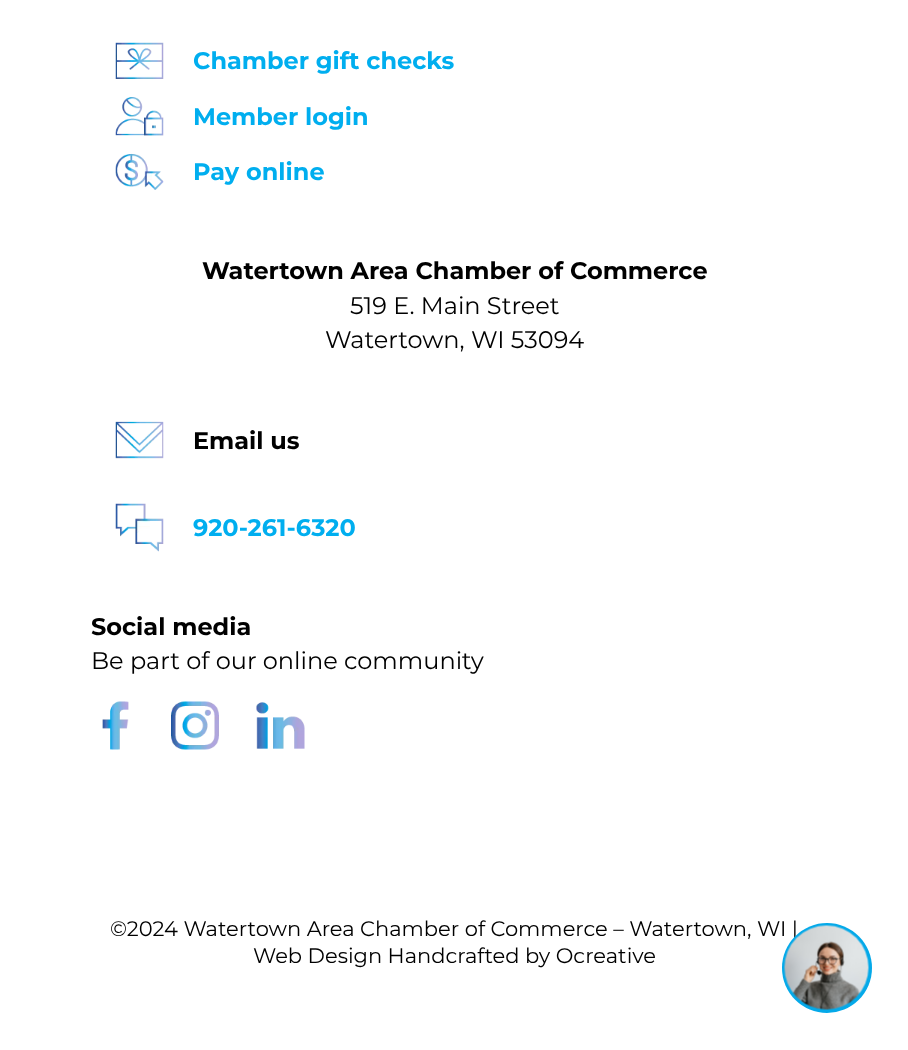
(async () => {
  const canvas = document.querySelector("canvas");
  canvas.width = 908;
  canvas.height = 1050;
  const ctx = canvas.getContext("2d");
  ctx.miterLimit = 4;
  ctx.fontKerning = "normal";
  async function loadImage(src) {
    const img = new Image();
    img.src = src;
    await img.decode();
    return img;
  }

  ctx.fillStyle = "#ffffff";
  ctx.fillRect(0, 0, 908, 1050);
  ctx.drawImage(await loadImage("img/1.png"), 115, 42, 49, 37);
  ctx.drawImage(await loadImage("img/2.png"), 115, 97, 49, 39);
  ctx.drawImage(await loadImage("img/3.png"), 115, 153, 49, 37);
  ctx.drawImage(await loadImage("img/4.png"), 115, 421, 49, 38);
  ctx.drawImage(await loadImage("img/5.png"), 115, 503, 49, 49);
  ctx.drawImage(await loadImage("img/6.png"), 102, 701, 27, 49);
  ctx.drawImage(await loadImage("img/7.png"), 171, 701, 48, 49);
  ctx.drawImage(await loadImage("img/8.png"), 256, 702, 49, 47);
  ctx.font = "bold 24px Montserrat";
  ctx.fillStyle = "#00aeef";
  for (const [text, x, y] of [
    ["Chamber gift checks", 193, 69],
    ["Member login", 193, 125],
    ["Pay online", 193, 180],
  ]) {
    ctx.fillText(text, x, y);
  }
  ctx.fillStyle = "#000000";
  ctx.fillText("Watertown Area Chamber of Commerce", 202, 279);
  ctx.font = "24px Montserrat";
  ctx.fillText("519 E. Main Street", 350, 314);
  ctx.fillText("Watertown, WI 53094", 325, 348);
  ctx.font = "bold 24px Montserrat";
  ctx.fillText("Email us", 193, 449);
  ctx.fillStyle = "#00aeef";
  ctx.fillText("920-261-6320", 193, 536);
  ctx.fillStyle = "#000000";
  ctx.fillText("Social media", 91, 635);
  ctx.font = "24px Montserrat";
  ctx.fillText("Be part of our online community", 91, 669);
  ctx.font = "21px Montserrat";
  ctx.fillText("©2024 Watertown Area Chamber of Commerce – Watertown, WI |", 110, 936);
  ctx.fillText("Web Design Handcrafted by Ocreative", 253, 963);
  ctx.fillStyle = "#04a9e9";
  ctx.beginPath();
  ctx.arc(827, 968, 45, 0, Math.PI * 2);
  ctx.fill();
  ctx.drawImage(await loadImage("img/9.png"), 784, 925, 85, 85);
})();
